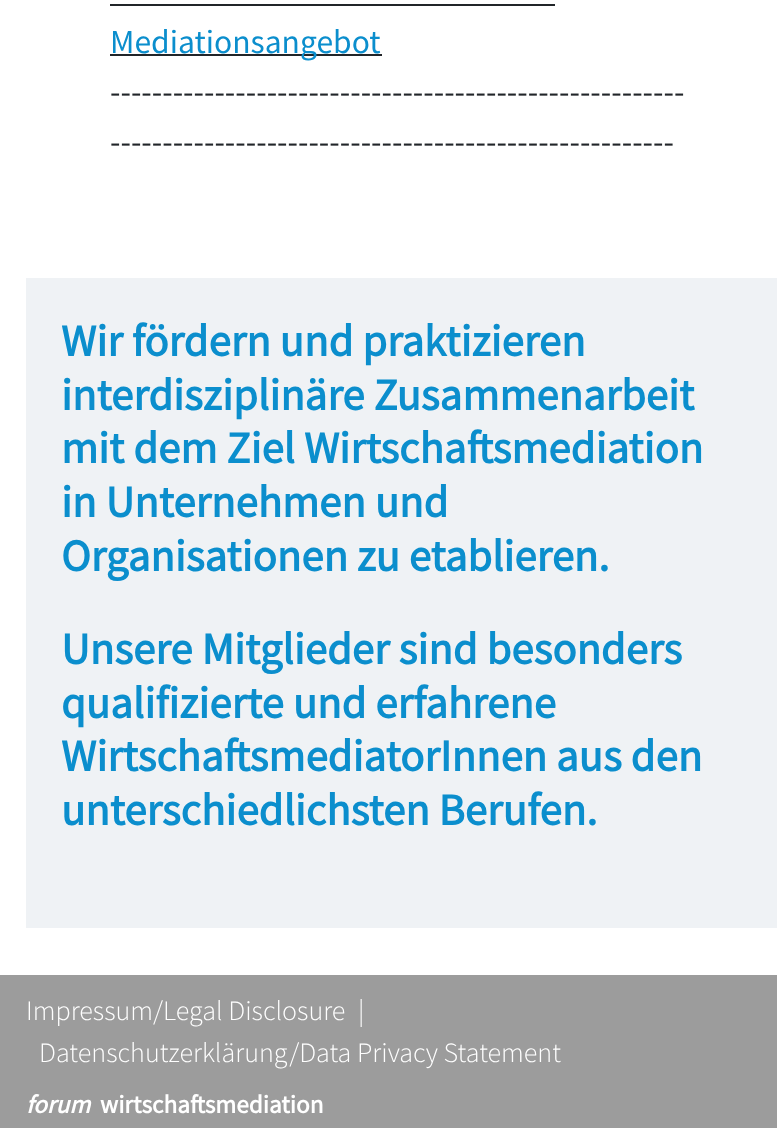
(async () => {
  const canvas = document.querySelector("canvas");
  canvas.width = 777;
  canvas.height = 1128;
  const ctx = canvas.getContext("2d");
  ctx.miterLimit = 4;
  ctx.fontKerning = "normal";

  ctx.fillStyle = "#ffffff";
  ctx.fillRect(0, 0, 777, 1128);
  for (const [x, y, w, h, color] of [
    [110, 4, 445, 2, "#212529"],
    [110, 54, 272, 2, "#212529"],
    [26, 278, 751, 650, "#eff2f5"],
    [0, 975, 777, 153, "#9c9c9c"],
  ]) {
    ctx.fillStyle = color;
    ctx.fillRect(x, y, w, h);
  }
  ctx.font = "33.6px Source Sans Pro";
  ctx.fillStyle = "#0b8ecd";
  ctx.fillText("Mediationsangebot", 110, 53);
  ctx.fillStyle = "#212529";
  ctx.fillText("-------------------------------------------------------", 110, 103);
  ctx.fillText("------------------------------------------------------", 110, 153);
  ctx.font = "bold 44.75px Source Sans Pro";
  ctx.fillStyle = "#0b8ecd";
  for (const [text, x, y] of [
    ["Wir fördern und praktizieren", 61, 356],
    ["interdisziplinäre Zusammenarbeit", 61, 410],
    ["mit dem Ziel Wirtschaftsmediation", 61, 463],
    ["in Unternehmen und", 61, 517],
    ["Organisationen zu etablieren.", 61, 571],
    ["Unsere Mitglieder sind besonders", 61, 664],
    ["qualifizierte und erfahrene", 61, 718],
    ["WirtschaftsmediatorInnen aus den", 61, 771],
    ["unterschiedlichsten Berufen.", 61, 825],
  ]) {
    ctx.fillText(text, x, y);
  }
  ctx.font = "300 28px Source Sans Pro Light";
  ctx.fillStyle = "#ffffff";
  for (const [text, x, y] of [
    ["Impressum/Legal Disclosure", 26, 1020],
    ["|", 358, 1020],
    ["Datenschutzerklärung/Data Privacy Statement", 39, 1062],
  ]) {
    ctx.fillText(text, x, y);
  }
  ctx.font = "italic bold 25.25px Source Sans Pro";
  ctx.fillText("forum", 26, 1113);
  ctx.font = "bold 25.25px Source Sans Pro";
  ctx.fillText("wirtschaftsmediation", 100, 1113);
})();
